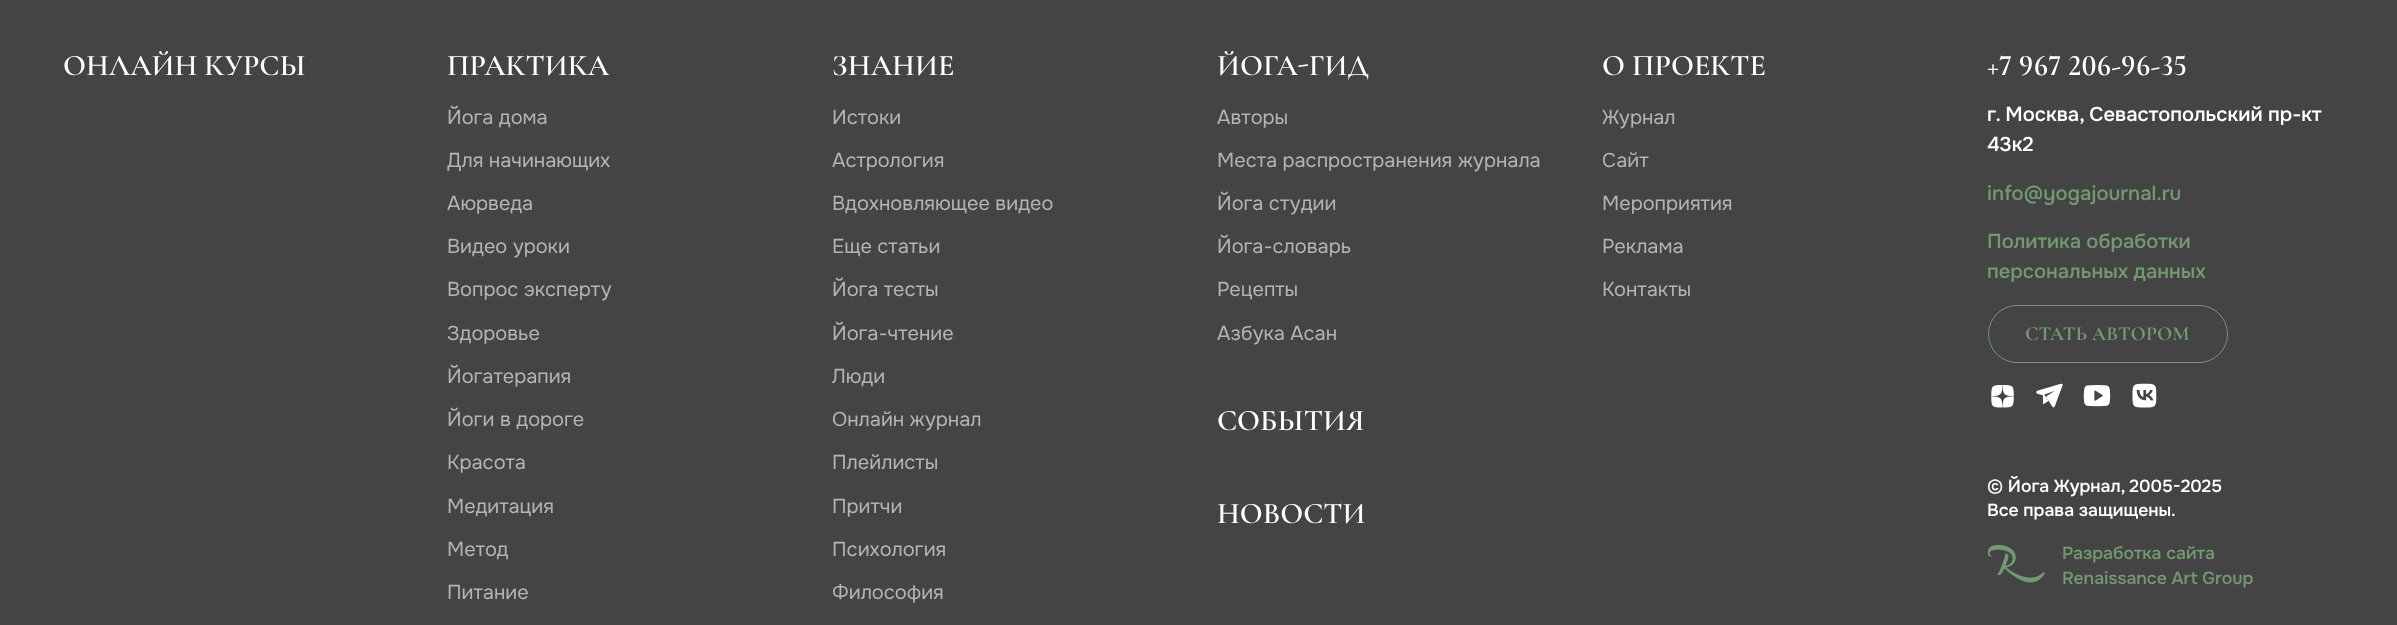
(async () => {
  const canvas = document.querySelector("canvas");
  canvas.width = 2397;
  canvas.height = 625;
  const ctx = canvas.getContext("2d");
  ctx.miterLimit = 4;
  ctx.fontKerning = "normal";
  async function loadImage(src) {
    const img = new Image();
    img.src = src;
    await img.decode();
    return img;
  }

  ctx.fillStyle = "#444444";
  ctx.fillRect(0, 0, 2397, 625);
  ctx.beginPath();
  ctx.roundRect(1988.5, 305.5, 239, 57, 28.5);
  ctx.strokeStyle = "#739971";
  ctx.stroke();
  ctx.drawImage(await loadImage("img/1.png"), 1991, 385, 23, 23);
  ctx.drawImage(await loadImage("img/2.png"), 2036, 383, 27, 25);
  ctx.drawImage(await loadImage("img/3.png"), 2083, 385, 28, 22);
  ctx.drawImage(await loadImage("img/4.png"), 2132, 383, 25, 25);
  ctx.drawImage(await loadImage("img/5.png"), 1988, 545, 57, 38);
  ctx.font = "600 30px Cormorant Garamond";
  ctx.fillStyle = "#ffffff";
  ctx.fillText("ОНЛАЙН КУРСЫ", 63, 75);
  ctx.fillText("ПРАКТИКА", 447, 75);
  ctx.font = "20px Onest";
  ctx.fillStyle = "#b4b4b4";
  for (const [text, x, y] of [
    ["Йога дома", 447, 124],
    ["Для начинающих", 447, 167],
    ["Аюрведа", 447, 210],
    ["Видео уроки", 447, 253],
    ["Вопрос эксперту", 447, 296],
    ["Здоровье", 447, 340],
    ["Йогатерапия", 447, 383],
    ["Йоги в дороге", 447, 426],
    ["Красота", 447, 469],
    ["Медитация", 447, 513],
    ["Метод", 447, 556],
    ["Питание", 447, 599],
  ]) {
    ctx.fillText(text, x, y);
  }
  ctx.font = "600 30px Cormorant Garamond";
  ctx.fillStyle = "#ffffff";
  ctx.fillText("ЗНАНИЕ", 832, 75);
  ctx.font = "20px Onest";
  ctx.fillStyle = "#b4b4b4";
  for (const [text, x, y] of [
    ["Истоки", 832, 124],
    ["Астрология", 832, 167],
    ["Вдохновляющее видео", 832, 210],
    ["Еще статьи", 832, 253],
    ["Йога тесты", 832, 296],
    ["Йога-чтение", 832, 340],
    ["Люди", 832, 383],
    ["Онлайн журнал", 832, 426],
    ["Плейлисты", 832, 469],
    ["Притчи", 832, 513],
    ["Психология", 832, 556],
    ["Философия", 832, 599],
  ]) {
    ctx.fillText(text, x, y);
  }
  ctx.font = "600 30px Cormorant Garamond";
  ctx.fillStyle = "#ffffff";
  ctx.fillText("ЙОГА-ГИД", 1217, 75);
  ctx.font = "20px Onest";
  ctx.fillStyle = "#b4b4b4";
  for (const [text, x, y] of [
    ["Авторы", 1217, 124],
    ["Места распространения журнала", 1217, 167],
    ["Йога студии", 1217, 210],
    ["Йога-словарь", 1217, 253],
    ["Рецепты", 1217, 296],
    ["Азбука Асан", 1217, 340],
  ]) {
    ctx.fillText(text, x, y);
  }
  ctx.font = "600 30px Cormorant Garamond";
  ctx.fillStyle = "#ffffff";
  ctx.fillText("О ПРОЕКТЕ", 1602, 75);
  ctx.font = "20px Onest";
  ctx.fillStyle = "#b4b4b4";
  for (const [text, x, y] of [
    ["Журнал", 1602, 124],
    ["Сайт", 1602, 167],
    ["Мероприятия", 1602, 210],
    ["Реклама", 1602, 253],
    ["Контакты", 1602, 296],
  ]) {
    ctx.fillText(text, x, y);
  }
  ctx.font = "600 30px Cormorant Garamond";
  ctx.fillStyle = "#ffffff";
  ctx.fillText("СОБЫТИЯ", 1217, 430);
  ctx.fillText("НОВОСТИ", 1217, 523);
  ctx.font = "600 30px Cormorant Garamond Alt";
  ctx.fillText("+7 967 206-96-35", 1987, 75);
  ctx.font = "500 20px Onest";
  ctx.fillText("г. Москва, Севастопольский пр-кт", 1987, 121);
  ctx.fillText("43к2", 1987, 151);
  ctx.fillStyle = "#739971";
  for (const [text, x, y] of [
    ["info@yogajournal.ru", 1987, 200],
    ["Политика обработки", 1987, 248],
    ["персональных данных", 1987, 278],
  ]) {
    ctx.fillText(text, x, y);
  }
  ctx.font = "bold 20px Cormorant Garamond";
  ctx.fillText("СТАТЬ АВТОРОМ", 2025, 340);
  ctx.font = "500 17.5px Onest";
  ctx.fillStyle = "#ffffff";
  ctx.fillText("© Йога Журнал, 2005-2025", 1987, 492);
  ctx.fillText("Все права защищены.", 1987, 516);
  ctx.fillStyle = "#739971";
  ctx.fillText("Разработка сайта", 2062, 559);
  ctx.fillText("Renaissance Art Group", 2062, 584);
})();
